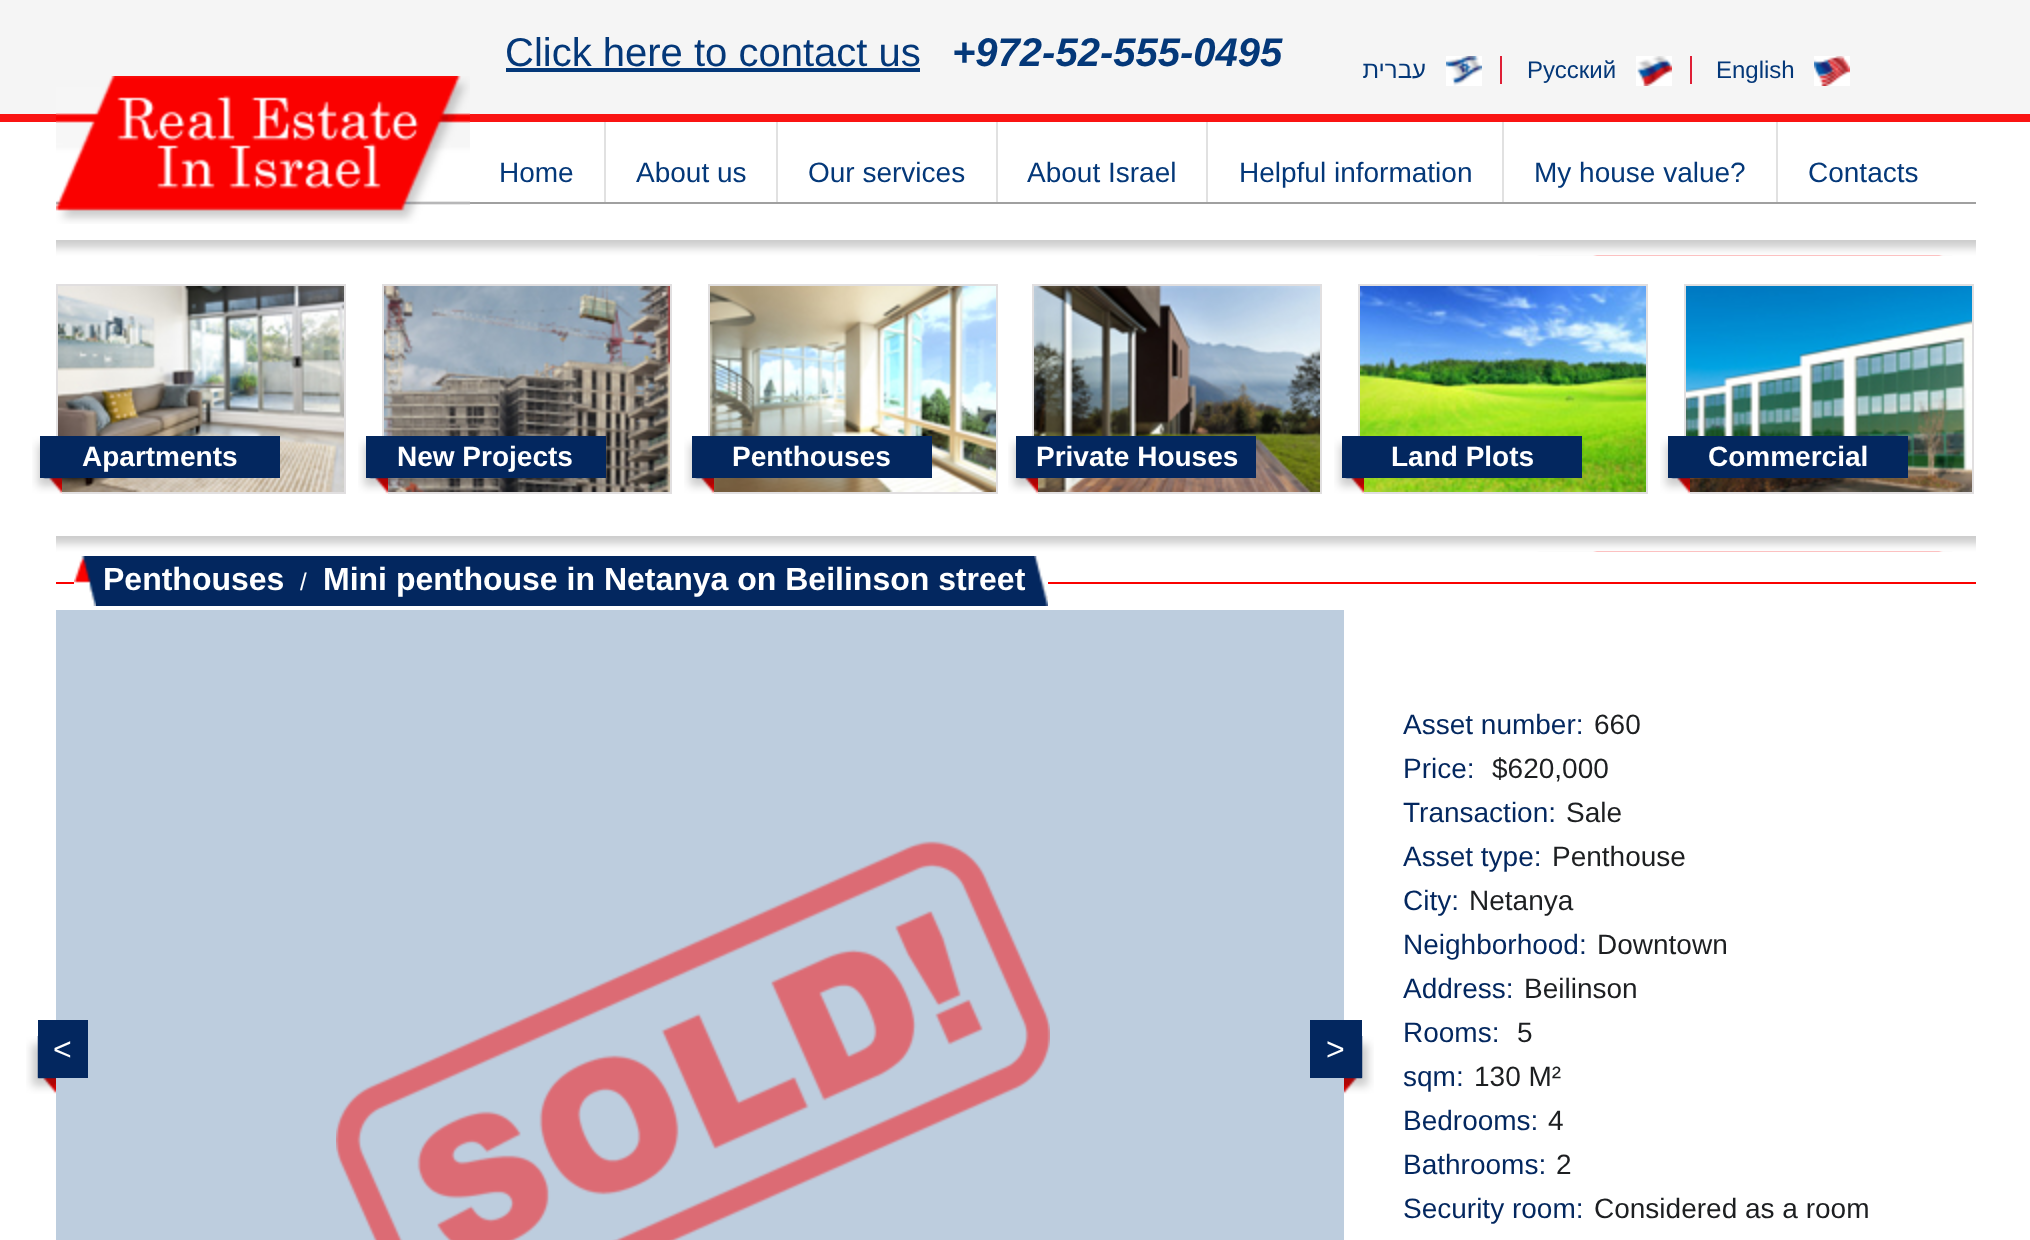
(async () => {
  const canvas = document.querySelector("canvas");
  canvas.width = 2030;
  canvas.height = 1240;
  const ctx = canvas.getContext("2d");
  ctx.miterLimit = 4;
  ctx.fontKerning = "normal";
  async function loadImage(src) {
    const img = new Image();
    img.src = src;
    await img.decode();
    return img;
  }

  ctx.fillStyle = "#ffffff";
  ctx.fillRect(0, 0, 2030, 1240);
  for (const [x, y, w, h, color] of [
    [0, 0, 2030, 114, "#f5f5f5"],
    [0, 114, 2030, 8, "#fa1413"],
    [506, 68, 414, 4, "#043879"],
  ]) {
    ctx.fillStyle = color;
    ctx.fillRect(x, y, w, h);
  }
  ctx.drawImage(await loadImage("img/1.png"), 1446, 56, 36, 30);
  ctx.fillStyle = "#df1f36";
  ctx.fillRect(1500, 56, 2, 28);
  ctx.drawImage(await loadImage("img/2.png"), 1636, 56, 36, 30);
  ctx.fillRect(1690, 56, 2, 28);
  ctx.drawImage(await loadImage("img/3.png"), 1814, 56, 36, 30);
  ctx.drawImage(await loadImage("img/4.png"), 56, 76, 414, 148);
  for (const [x, y, w, h, color] of [
    [470, 202, 1506, 2, "#a0a0a0"],
    [604, 122, 2, 80, "#e1e1e1"],
    [776, 122, 2, 80, "#e1e1e1"],
    [996, 122, 2, 80, "#e1e1e1"],
    [1206, 122, 2, 80, "#e1e1e1"],
    [1502, 122, 2, 80, "#e1e1e1"],
    [1776, 122, 2, 80, "#e1e1e1"],
  ]) {
    ctx.fillStyle = color;
    ctx.fillRect(x, y, w, h);
  }
  ctx.drawImage(await loadImage("img/5.png"), 56, 240, 1920, 16);
  ctx.strokeStyle = "#e1dfe0";
  ctx.lineWidth = 2;
  ctx.strokeRect(57, 285, 288, 208);
  ctx.drawImage(await loadImage("img/7.png"), 58, 286, 286, 206);
  ctx.drawImage(await loadImage("img/6.png"), 32, 436, 30, 58);
  ctx.fillStyle = "#03275f";
  ctx.fillRect(40, 436, 240, 42);
  ctx.strokeRect(383, 285, 288, 208);
  ctx.drawImage(await loadImage("img/8.png"), 384, 286, 286, 206);
  ctx.drawImage(await loadImage("img/6.png"), 358, 436, 30, 58);
  ctx.fillRect(366, 436, 240, 42);
  ctx.strokeRect(709, 285, 288, 208);
  ctx.drawImage(await loadImage("img/9.png"), 710, 286, 286, 206);
  ctx.drawImage(await loadImage("img/6.png"), 684, 436, 30, 58);
  ctx.fillRect(692, 436, 240, 42);
  ctx.strokeRect(1033, 285, 288, 208);
  ctx.drawImage(await loadImage("img/10.png"), 1034, 286, 286, 206);
  ctx.drawImage(await loadImage("img/6.png"), 1008, 436, 30, 58);
  ctx.fillRect(1016, 436, 240, 42);
  ctx.strokeRect(1359, 285, 288, 208);
  ctx.drawImage(await loadImage("img/11.png"), 1360, 286, 286, 206);
  ctx.drawImage(await loadImage("img/6.png"), 1334, 436, 30, 58);
  ctx.fillRect(1342, 436, 240, 42);
  ctx.strokeRect(1685, 285, 288, 208);
  ctx.drawImage(await loadImage("img/12.png"), 1686, 286, 286, 206);
  ctx.drawImage(await loadImage("img/6.png"), 1660, 436, 30, 58);
  ctx.fillRect(1668, 436, 240, 42);
  ctx.drawImage(await loadImage("img/5.png"), 56, 536, 1920, 16);
  ctx.fillStyle = "#fa0100";
  ctx.fillRect(56, 582, 1920, 2);
  ctx.drawImage(await loadImage("img/13.png"), 74, 556, 22, 50);
  ctx.fillStyle = "#03275f";
  ctx.fillRect(96, 556, 938, 50);
  ctx.drawImage(await loadImage("img/14.png"), 1034, 556, 14, 50);
  ctx.fillStyle = "#bdcdde";
  ctx.fillRect(56, 610, 1288, 630);
  ctx.drawImage(await loadImage("img/6.png"), 26, 1036, 30, 58);
  ctx.fillStyle = "#03275f";
  ctx.fillRect(38, 1020, 50, 58);
  ctx.drawImage(await loadImage("img/15.png"), 336, 841, 714, 399);
  ctx.drawImage(await loadImage("img/16.png"), 1344, 1036, 30, 58);
  ctx.fillRect(1310, 1020, 52, 58);
  ctx.font = "40px Liberation Sans";
  ctx.fillStyle = "#043879";
  ctx.fillText("Click here to contact us", 505, 66);
  ctx.font = "italic bold 40px Liberation Sans";
  ctx.fillText("+972-52-555-0495", 952, 66);
  ctx.direction = "rtl";
  ctx.font = "24px Liberation Sans";
  ctx.fillText("עברית", 1426, 78);
  ctx.direction = "ltr";
  ctx.fillText("Pусский", 1527, 78);
  ctx.fillText("English", 1716, 78);
  ctx.font = "28px Liberation Sans";
  for (const [text, x, y] of [
    ["Home", 499, 182],
    ["About us", 636, 182],
    ["Our services", 808, 182],
    ["About Israel", 1027, 182],
    ["Helpful information", 1239, 182],
    ["My house value?", 1534, 182],
    ["Contacts", 1808, 182],
  ]) {
    ctx.fillText(text, x, y);
  }
  ctx.font = "bold 28px Liberation Sans";
  ctx.fillStyle = "#ffffff";
  for (const [text, x, y] of [
    ["Apartments", 82, 466],
    ["New Projects", 397, 466],
    ["Penthouses", 732, 466],
    ["Private Houses", 1036, 466],
    ["Land Plots", 1391, 466],
    ["Commercial", 1708, 466],
  ]) {
    ctx.fillText(text, x, y);
  }
  ctx.font = "bold 32px Liberation Sans";
  ctx.fillText("Penthouses", 103, 590);
  ctx.font = "24px Liberation Sans";
  ctx.fillText("/", 300, 590);
  ctx.font = "bold 32px Liberation Sans";
  ctx.fillText("Mini penthouse in Netanya on Beilinson street", 323, 590);
  ctx.font = "32px Liberation Sans";
  ctx.fillText("<", 53, 1060);
  ctx.fillText(">", 1326, 1060);
  ctx.font = "28px Liberation Sans";
  ctx.fillStyle = "#03275f";
  ctx.fillText("Asset number:", 1403, 734);
  ctx.fillStyle = "#1d1f21";
  ctx.fillText("660", 1594, 734);
  ctx.fillStyle = "#03275f";
  ctx.fillText("Price:", 1403, 778);
  ctx.fillStyle = "#1d1f21";
  ctx.fillText("$620,000", 1492, 778);
  ctx.fillStyle = "#03275f";
  ctx.fillText("Transaction:", 1403, 822);
  ctx.fillStyle = "#1d1f21";
  ctx.fillText("Sale", 1566, 822);
  ctx.fillStyle = "#03275f";
  ctx.fillText("Asset type:", 1403, 866);
  ctx.fillStyle = "#1d1f21";
  ctx.fillText("Penthouse", 1552, 866);
  ctx.fillStyle = "#03275f";
  ctx.fillText("City:", 1403, 910);
  ctx.fillStyle = "#1d1f21";
  ctx.fillText("Netanya", 1469, 910);
  ctx.fillStyle = "#03275f";
  ctx.fillText("Neighborhood:", 1403, 954);
  ctx.fillStyle = "#1d1f21";
  ctx.fillText("Downtown", 1597, 954);
  ctx.fillStyle = "#03275f";
  ctx.fillText("Address:", 1403, 998);
  ctx.fillStyle = "#1d1f21";
  ctx.fillText("Beilinson", 1524, 998);
  ctx.fillStyle = "#03275f";
  ctx.fillText("Rooms:", 1403, 1042);
  ctx.fillStyle = "#1d1f21";
  ctx.fillText("5", 1517, 1042);
  ctx.fillStyle = "#03275f";
  ctx.fillText("sqm:", 1403, 1086);
  ctx.fillStyle = "#1d1f21";
  ctx.fillText("130 M²", 1474, 1086);
  ctx.fillStyle = "#03275f";
  ctx.fillText("Bedrooms:", 1403, 1130);
  ctx.fillStyle = "#1d1f21";
  ctx.fillText("4", 1548, 1130);
  ctx.fillStyle = "#03275f";
  ctx.fillText("Bathrooms:", 1403, 1174);
  ctx.fillStyle = "#1d1f21";
  ctx.fillText("2", 1556, 1174);
  ctx.fillStyle = "#03275f";
  ctx.fillText("Security room:", 1403, 1218);
  ctx.fillStyle = "#1d1f21";
  ctx.fillText("Considered as a room", 1594, 1218);
})();
